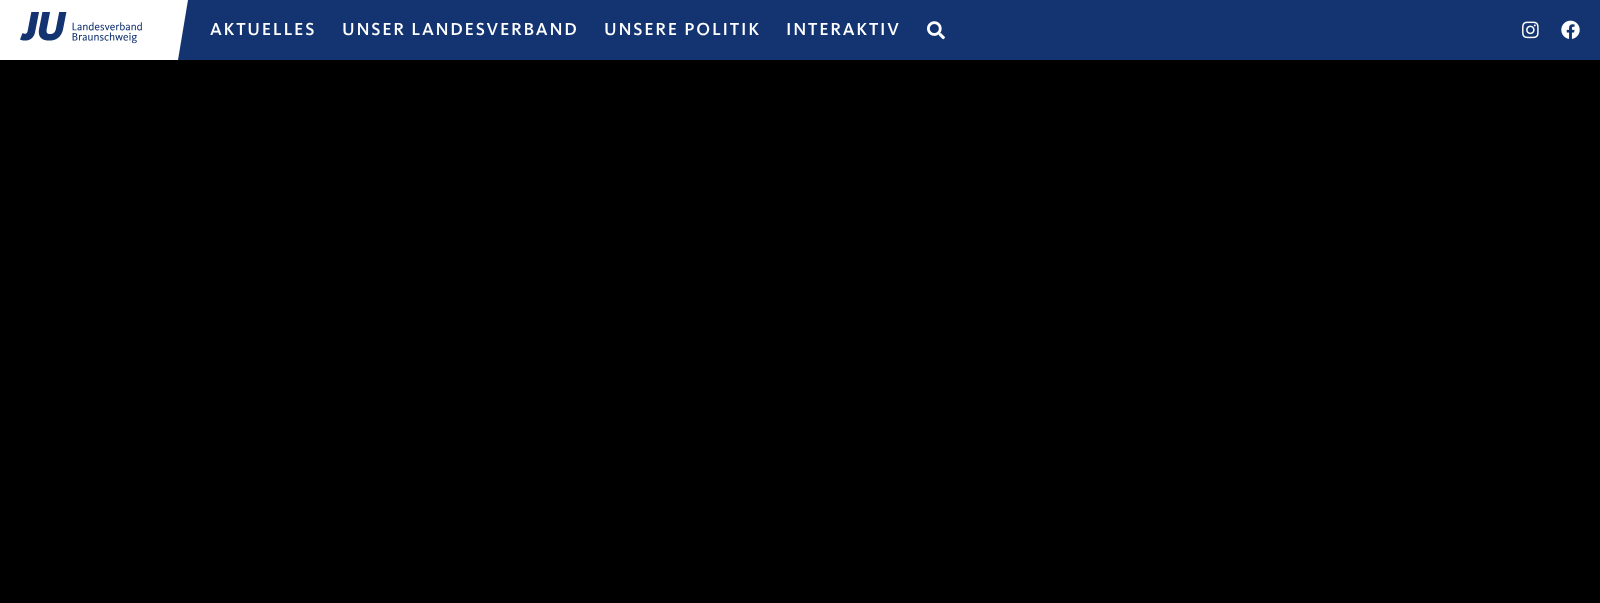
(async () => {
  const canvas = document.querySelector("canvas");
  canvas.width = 1600;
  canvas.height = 603;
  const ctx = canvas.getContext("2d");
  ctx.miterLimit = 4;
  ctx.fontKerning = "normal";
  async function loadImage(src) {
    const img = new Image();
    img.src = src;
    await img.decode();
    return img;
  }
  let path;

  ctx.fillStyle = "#000000";
  ctx.fillRect(0, 0, 1600, 603);
  ctx.fillStyle = "#133371";
  ctx.fillRect(190, 0, 1410, 60);
  ctx.fillStyle = "#ffffff";
  ctx.fillRect(0, 0, 188, 60);
  ctx.fillStyle = "#133371";
  path = new Path2D("M190 0H188L178 60H190Z");
  ctx.fill(path);
  ctx.drawImage(await loadImage("img/1.png"), 20, 12, 122, 32);
  ctx.drawImage(await loadImage("img/2.png"), 927, 21, 18, 19);
  ctx.drawImage(await loadImage("img/3.png"), 1522, 21, 17, 18);
  ctx.drawImage(await loadImage("img/4.png"), 1561, 20, 19, 19);
  ctx.letterSpacing = "1.75px";
  ctx.font = "500 18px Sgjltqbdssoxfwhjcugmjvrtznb";
  ctx.fillStyle = "#ffffff";
  for (const [text, x, y] of [
    ["AKTUELLES", 210, 35],
    ["UNSER LANDESVERBAND", 342, 35],
    ["UNSERE POLITIK", 604, 35],
    ["INTERAKTIV", 786, 35],
  ]) {
    ctx.fillText(text, x, y);
  }
})();
